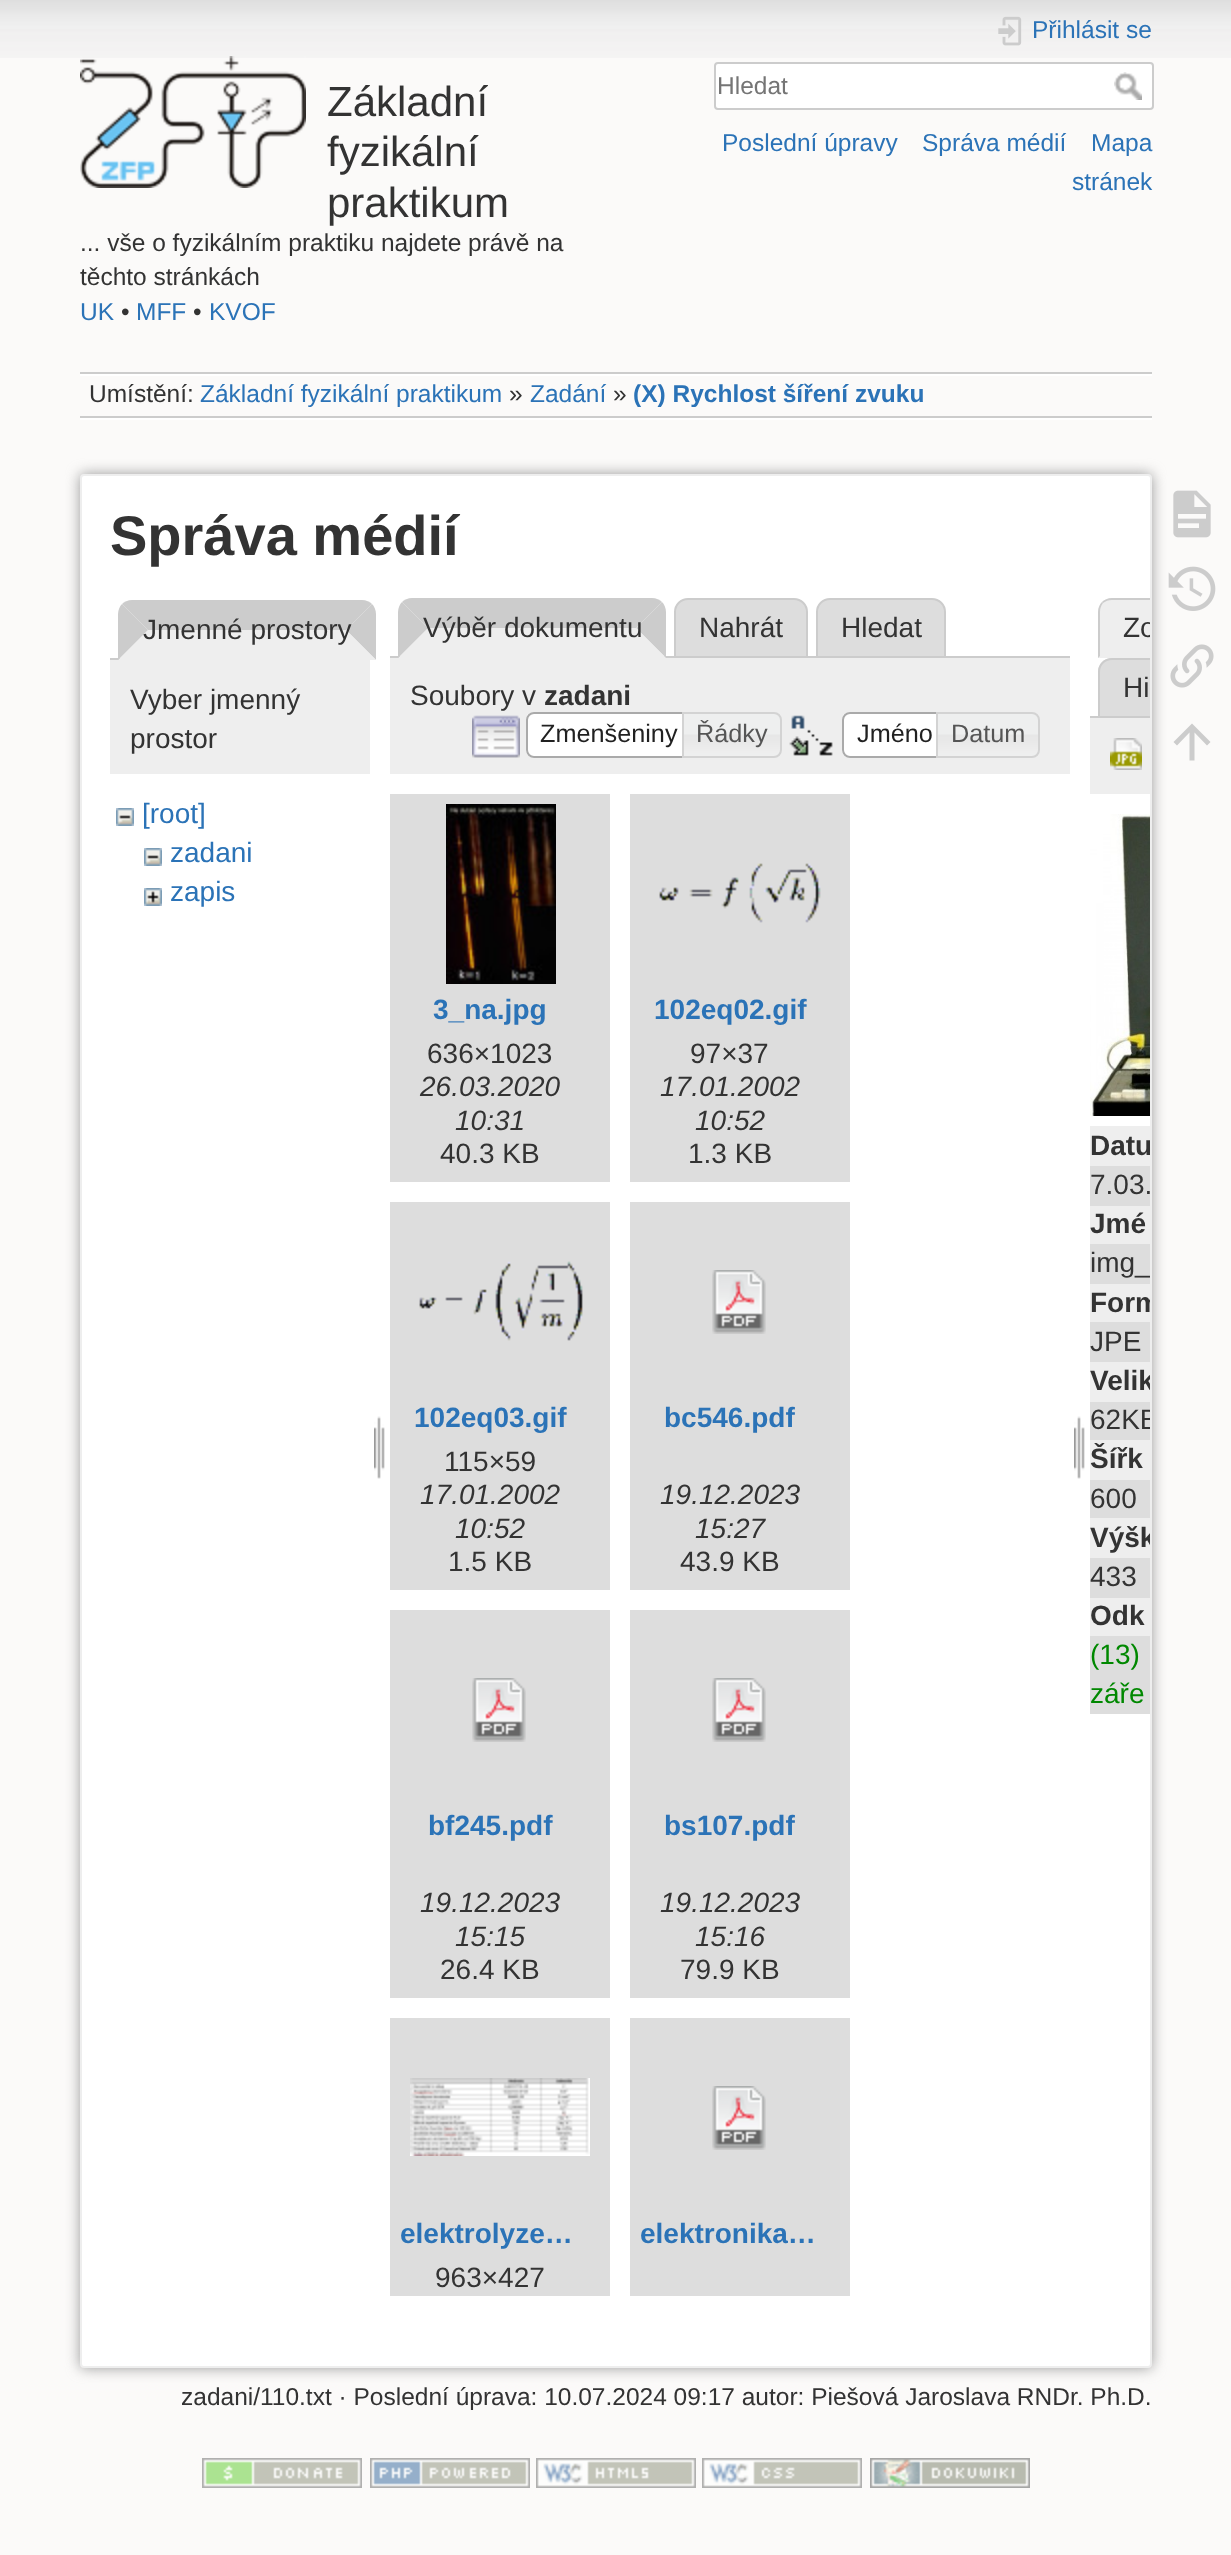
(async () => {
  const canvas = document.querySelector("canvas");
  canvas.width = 1231;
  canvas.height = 2555;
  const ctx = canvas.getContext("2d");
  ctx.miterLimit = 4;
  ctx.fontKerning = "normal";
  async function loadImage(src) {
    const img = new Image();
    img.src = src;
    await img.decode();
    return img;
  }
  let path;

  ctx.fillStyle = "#fbfaf9";
  ctx.fillRect(0, 0, 1231, 2555);
  ctx.drawImage(await loadImage("img/1.png"), 0, 0, 1231, 58);
  ctx.drawImage(await loadImage("img/2.png"), 80, 56, 226, 132);
  ctx.drawImage(await loadImage("img/3.png"), 998, 16, 24, 30);
  ctx.fillStyle = "#ffffff";
  ctx.beginPath();
  ctx.roundRect(715, 63, 438, 46, 3);
  ctx.fill();
  ctx.strokeStyle = "#cccccc";
  ctx.lineWidth = 2;
  ctx.stroke();
  ctx.drawImage(await loadImage("img/4.png"), 1114, 72, 28, 28);
  for (const [x, y, w, h, color] of [
    [80, 372, 1072, 2, "#cccccc"],
    [80, 418, 1072, 2, "#ffffff"],
    [80, 374, 1072, 2, "#ffffff"],
    [80, 416, 1072, 2, "#cccccc"],
  ]) {
    ctx.fillStyle = color;
    ctx.fillRect(x, y, w, h);
  }
  ctx.fillStyle = "#999999";
  ctx.filter = "blur(7px)";
  ctx.beginPath();
  ctx.roundRect(80, 474, 1072, 1894, 4);
  ctx.fill();
  ctx.filter = "none";
  ctx.fillStyle = "#ffffff";
  ctx.beginPath();
  ctx.roundRect(81, 475, 1070, 1892, 3);
  ctx.fill();
  ctx.strokeStyle = "#eeeeee";
  ctx.stroke();
  ctx.fillStyle = "#cccccc";
  path = new Path2D("M132 600H362C366 600 370 602 372 604L346 630H148L122 604C124 602 128 600 132 600Z");
  ctx.fill(path);
  path = new Path2D("M372 604L346 630L376 660V614C376 610 374 606 372 604Z");
  ctx.fill(path);
  ctx.fillRect(110, 658, 10, 2);
  ctx.fillStyle = "#eeeeee";
  path = new Path2D("M376 660L346 630H148L118 660Z");
  ctx.fill(path);
  ctx.fillStyle = "#cccccc";
  path = new Path2D("M118 660V614C118 610 120 606 122 604L148 630Z");
  ctx.fill(path);
  ctx.fillStyle = "#eeeeee";
  ctx.fillRect(110, 660, 260, 114);
  ctx.drawImage(await loadImage("img/5.png"), 116, 808, 18, 18);
  ctx.drawImage(await loadImage("img/5.png"), 144, 848, 18, 18);
  ctx.drawImage(await loadImage("img/6.png"), 144, 888, 18, 18);
  ctx.drawImage(await loadImage("img/7.png"), 374, 1416, 11, 63);
  ctx.fillStyle = "#cccccc";
  path = new Path2D("M412 598H652C656 598 660 600 662 602L636 628H428L402 602C404 600 408 598 412 598Z");
  ctx.fill(path);
  ctx.fillStyle = "#dddddd";
  ctx.beginPath();
  ctx.roundRect(675, 599, 132, 58, [13, 13, 0, 0]);
  ctx.fill();
  ctx.strokeStyle = "#cccccc";
  ctx.stroke();
  ctx.beginPath();
  ctx.roundRect(817, 599, 128, 58, [13, 13, 0, 0]);
  ctx.fill();
  ctx.stroke();
  ctx.fillStyle = "#cccccc";
  ctx.fillRect(390, 656, 680, 2);
  path = new Path2D("M662 602L636 628L666 658V612C666 608 664 604 662 602Z");
  ctx.fill(path);
  ctx.fillStyle = "#eeeeee";
  path = new Path2D("M666 658L636 628H428L398 658Z");
  ctx.fill(path);
  ctx.fillStyle = "#cccccc";
  path = new Path2D("M398 658V612C398 608 400 604 402 602L428 628Z");
  ctx.fill(path);
  ctx.fillStyle = "#eeeeee";
  ctx.fillRect(390, 658, 680, 116);
  ctx.drawImage(await loadImage("img/8.png"), 472, 715, 48, 43);
  ctx.fillStyle = "#ffffff";
  ctx.beginPath();
  ctx.roundRect(526, 712, 166, 46, [8, 0, 0, 8]);
  ctx.fill();
  ctx.drawImage(await loadImage("img/9.png"), 526, 712, 6, 46);
  ctx.beginPath();
  ctx.roundRect(527, 713, 164, 44, [7, 0, 0, 7]);
  ctx.strokeStyle = "#aaaaaa";
  ctx.stroke();
  ctx.drawImage(await loadImage("img/10.png"), 684, 712, 98, 46);
  ctx.beginPath();
  ctx.roundRect(683, 713, 98, 44, [0, 7, 7, 0]);
  ctx.strokeStyle = "#d3d3d3";
  ctx.stroke();
  ctx.drawImage(await loadImage("img/11.png"), 789, 715, 44, 41);
  ctx.beginPath();
  ctx.roundRect(842, 712, 104, 46, [8, 0, 0, 8]);
  ctx.fill();
  ctx.drawImage(await loadImage("img/9.png"), 842, 712, 6, 46);
  ctx.beginPath();
  ctx.roundRect(843, 713, 102, 44, [7, 0, 0, 7]);
  ctx.strokeStyle = "#aaaaaa";
  ctx.stroke();
  ctx.drawImage(await loadImage("img/12.png"), 938, 712, 102, 46);
  ctx.beginPath();
  ctx.roundRect(937, 713, 102, 44, [0, 7, 7, 0]);
  ctx.strokeStyle = "#d3d3d3";
  ctx.stroke();
  ctx.fillStyle = "#dddddd";
  ctx.fillRect(390, 794, 220, 388);
  ctx.drawImage(await loadImage("img/13.png"), 446, 804, 110, 180);
  ctx.fillRect(630, 794, 220, 388);
  ctx.drawImage(await loadImage("img/14.png"), 659, 863, 162, 60);
  ctx.fillRect(390, 1202, 220, 388);
  ctx.drawImage(await loadImage("img/15.png"), 419, 1261, 164, 80);
  ctx.fillRect(630, 1202, 220, 388);
  ctx.drawImage(await loadImage("img/16.png"), 712, 1270, 54, 64);
  ctx.fillRect(390, 1610, 220, 388);
  ctx.drawImage(await loadImage("img/16.png"), 472, 1678, 54, 64);
  ctx.fillRect(630, 1610, 220, 388);
  ctx.drawImage(await loadImage("img/16.png"), 712, 1678, 54, 64);
  ctx.fillRect(390, 2018, 220, 278);
  ctx.drawImage(await loadImage("img/17.png"), 410, 2078, 180, 78);
  ctx.fillRect(630, 2018, 220, 278);
  ctx.drawImage(await loadImage("img/16.png"), 712, 2086, 54, 64);
  ctx.drawImage(await loadImage("img/7.png"), 1074, 1416, 11, 63);
  ctx.fillStyle = "#eeeeee";
  ctx.beginPath();
  ctx.roundRect(1098, 598, 52, 60, [14, 0, 0, 0]);
  ctx.fill();
  ctx.fillStyle = "#cccccc";
  path = new Path2D("M1112 598H1150V600H1112C1108 600 1106 601 1103 603L1102 602C1104 600 1108 598 1112 598Z");
  ctx.fill(path);
  path = new Path2D("M1098 658L1100 656V612C1100 608 1101 606 1103 603L1102 602C1100 604 1098 608 1098 612Z");
  ctx.fill(path);
  ctx.fillStyle = "#dddddd";
  ctx.beginPath();
  ctx.roundRect(1098, 658, 52, 60, [14, 0, 0, 0]);
  ctx.fill();
  ctx.fillStyle = "#cccccc";
  path = new Path2D("M1112 658C1104 658 1098 664 1098 672V718H1150V716H1100V672C1100 665 1105 660 1112 660H1150V658Z");
  ctx.fill(path);
  ctx.fillRect(1090, 716, 8, 2);
  ctx.fillStyle = "#eeeeee";
  ctx.fillRect(1090, 718, 60, 76);
  ctx.drawImage(await loadImage("img/18.png"), 1110, 738, 32, 32);
  ctx.drawImage(await loadImage("img/19.png"), 1090, 814, 60, 302);
  for (const [x, y, w, h, color] of [
    [1090, 1126, 60, 40, "#eeeeee"],
    [1090, 1166, 60, 40, "#dddddd"],
    [1090, 1206, 60, 38, "#eeeeee"],
    [1090, 1244, 60, 40, "#dddddd"],
    [1090, 1284, 60, 38, "#eeeeee"],
    [1090, 1322, 60, 40, "#dddddd"],
    [1090, 1362, 60, 40, "#eeeeee"],
    [1090, 1402, 60, 38, "#dddddd"],
    [1090, 1440, 60, 40, "#eeeeee"],
    [1090, 1480, 60, 38, "#dddddd"],
    [1090, 1518, 60, 40, "#eeeeee"],
    [1090, 1558, 60, 40, "#dddddd"],
    [1090, 1598, 60, 38, "#eeeeee"],
    [1090, 1636, 60, 78, "#dddddd"],
  ]) {
    ctx.fillStyle = color;
    ctx.fillRect(x, y, w, h);
  }
  ctx.drawImage(await loadImage("img/20.png"), 1173, 490, 38, 48);
  ctx.drawImage(await loadImage("img/21.png"), 1168, 566, 48, 45);
  ctx.drawImage(await loadImage("img/22.png"), 1170, 644, 44, 44);
  ctx.fillStyle = "#cccccc";
  path = new Path2D("M1194.5 760.5H1189.5V732.5L1177 745.5L1173.5 742L1192 723.5L1210.5 742L1207 745.5L1194.5 732.5Z");
  ctx.fill(path);
  ctx.drawImage(await loadImage("img/23.png"), 202, 2458, 160, 30);
  ctx.drawImage(await loadImage("img/24.png"), 370, 2458, 160, 30);
  ctx.drawImage(await loadImage("img/25.png"), 536, 2458, 160, 30);
  ctx.drawImage(await loadImage("img/26.png"), 702, 2458, 160, 30);
  ctx.drawImage(await loadImage("img/27.png"), 870, 2458, 160, 30);
  ctx.font = "42px Liberation Sans";
  ctx.fillStyle = "#333333";
  for (const [text, x, y] of [
    ["Základní", 327, 116],
    ["fyzikální", 327, 166],
    ["praktikum", 327, 217],
  ]) {
    ctx.fillText(text, x, y);
  }
  ctx.font = "24.5px Liberation Sans";
  ctx.fillText("... vše o fyzikálním praktiku najdete právě na", 80, 251);
  ctx.fillText("těchto stránkách", 80, 285);
  ctx.fillStyle = "#2b73b7";
  ctx.fillText("UK", 80, 320);
  ctx.fillStyle = "#333333";
  ctx.fillText("•", 121, 320);
  ctx.fillStyle = "#2b73b7";
  ctx.fillText("MFF", 136, 320);
  ctx.fillStyle = "#333333";
  ctx.fillText("•", 193, 320);
  ctx.fillStyle = "#2b73b7";
  ctx.fillText("KVOF", 209, 320);
  ctx.fillText("Přihlásit se", 1032, 38);
  ctx.fillStyle = "#757575";
  ctx.fillText("Hledat", 717, 94);
  ctx.fillStyle = "#2b73b7";
  for (const [text, x, y] of [
    ["Poslední úpravy", 722, 151],
    ["Správa médií", 922, 151],
    ["Mapa", 1091, 151],
    ["stránek", 1072, 190],
  ]) {
    ctx.fillText(text, x, y);
  }
  ctx.fillStyle = "#333333";
  ctx.fillText("Umístění:", 89, 402);
  ctx.fillStyle = "#2b73b7";
  ctx.fillText("Základní fyzikální praktikum", 200, 402);
  ctx.fillStyle = "#333333";
  ctx.fillText("»", 509, 402);
  ctx.fillStyle = "#2b73b7";
  ctx.fillText("Zadání", 530, 402);
  ctx.fillStyle = "#333333";
  ctx.fillText("»", 613, 402);
  ctx.font = "bold 24.5px Liberation Sans";
  ctx.fillStyle = "#2b73b7";
  ctx.fillText("(X) Rychlost šíření zvuku", 633, 402);
  ctx.font = "bold 56px Liberation Sans";
  ctx.fillStyle = "#333333";
  ctx.fillText("Správa médií", 110, 555);
  ctx.font = "28px Liberation Sans";
  for (const [text, x, y] of [
    ["Jmenné prostory", 143, 639],
    ["Vyber jmenný", 130, 709],
    ["prostor", 130, 748],
  ]) {
    ctx.fillText(text, x, y);
  }
  ctx.fillStyle = "#2b73b7";
  for (const [text, x, y] of [
    ["[root]", 142, 823],
    ["zadani", 170, 862],
    ["zapis", 170, 901],
  ]) {
    ctx.fillText(text, x, y);
  }
  ctx.fillStyle = "#333333";
  for (const [text, x, y] of [
    ["Výběr dokumentu", 423, 637],
    ["Nahrát", 699, 637],
    ["Hledat", 841, 637],
    ["Soubory v", 410, 705],
  ]) {
    ctx.fillText(text, x, y);
  }
  ctx.font = "bold 28px Liberation Sans";
  ctx.fillText("zadani", 544, 705);
  ctx.font = "25.25px Liberation Sans";
  ctx.fillStyle = "#212121";
  ctx.fillText("Zmenšeniny", 540, 742);
  ctx.fillStyle = "#555555";
  ctx.fillText("Řádky", 696, 742);
  ctx.fillStyle = "#212121";
  ctx.fillText("Jméno", 857, 742);
  ctx.fillStyle = "#555555";
  ctx.fillText("Datum", 951, 742);
  ctx.font = "bold 28px Liberation Sans";
  ctx.fillStyle = "#2b73b7";
  ctx.fillText("3_na.jpg", 433, 1019);
  ctx.font = "28px Liberation Sans";
  ctx.fillStyle = "#333333";
  ctx.fillText("636×1023", 427, 1063);
  ctx.font = "italic 28px Liberation Sans";
  ctx.fillText("26.03.2020", 420, 1096);
  ctx.fillText("10:31", 455, 1130);
  ctx.font = "28px Liberation Sans";
  ctx.fillText("40.3 KB", 440, 1163);
  ctx.font = "bold 28px Liberation Sans";
  ctx.fillStyle = "#2b73b7";
  ctx.fillText("102eq02.gif", 654, 1019);
  ctx.font = "28px Liberation Sans";
  ctx.fillStyle = "#333333";
  ctx.fillText("97×37", 690, 1063);
  ctx.font = "italic 28px Liberation Sans";
  ctx.fillText("17.01.2002", 660, 1096);
  ctx.fillText("10:52", 695, 1130);
  ctx.font = "28px Liberation Sans";
  ctx.fillText("1.3 KB", 688, 1163);
  ctx.font = "bold 28px Liberation Sans";
  ctx.fillStyle = "#2b73b7";
  ctx.fillText("102eq03.gif", 414, 1427);
  ctx.font = "28px Liberation Sans";
  ctx.fillStyle = "#333333";
  ctx.fillText("115×59", 444, 1471);
  ctx.font = "italic 28px Liberation Sans";
  ctx.fillText("17.01.2002", 420, 1504);
  ctx.fillText("10:52", 455, 1538);
  ctx.font = "28px Liberation Sans";
  ctx.fillText("1.5 KB", 448, 1571);
  ctx.font = "bold 28px Liberation Sans";
  ctx.fillStyle = "#2b73b7";
  ctx.fillText("bc546.pdf", 664, 1427);
  ctx.font = "italic 28px Liberation Sans";
  ctx.fillStyle = "#333333";
  ctx.fillText("19.12.2023", 660, 1504);
  ctx.fillText("15:27", 695, 1538);
  ctx.font = "28px Liberation Sans";
  ctx.fillText("43.9 KB", 680, 1571);
  ctx.font = "bold 28px Liberation Sans";
  ctx.fillStyle = "#2b73b7";
  ctx.fillText("bf245.pdf", 428, 1835);
  ctx.font = "italic 28px Liberation Sans";
  ctx.fillStyle = "#333333";
  ctx.fillText("19.12.2023", 420, 1912);
  ctx.fillText("15:15", 455, 1946);
  ctx.font = "28px Liberation Sans";
  ctx.fillText("26.4 KB", 440, 1979);
  ctx.font = "bold 28px Liberation Sans";
  ctx.fillStyle = "#2b73b7";
  ctx.fillText("bs107.pdf", 664, 1835);
  ctx.font = "italic 28px Liberation Sans";
  ctx.fillStyle = "#333333";
  ctx.fillText("19.12.2023", 660, 1912);
  ctx.fillText("15:16", 695, 1946);
  ctx.font = "28px Liberation Sans";
  ctx.fillText("79.9 KB", 680, 1979);
  ctx.font = "bold 28px Liberation Sans";
  ctx.fillStyle = "#2b73b7";
  ctx.fillText("elektrolyze…", 400, 2243);
  ctx.font = "28px Liberation Sans";
  ctx.fillStyle = "#333333";
  ctx.fillText("963×427", 435, 2287);
  ctx.font = "bold 28px Liberation Sans";
  ctx.fillStyle = "#2b73b7";
  ctx.fillText("elektronika…", 640, 2243);
  ctx.save();
  ctx.beginPath();
  ctx.roundRect(82, 476, 1068, 1890, 2);
  ctx.clip();
  ctx.font = "28px Liberation Sans";
  ctx.fillStyle = "#333333";
  ctx.fillText("Zo", 1123, 637);
  ctx.restore();
  ctx.font = "28px Liberation Sans";
  ctx.fillStyle = "#333333";
  ctx.fillText("Hi", 1123, 697);
  ctx.save();
  ctx.beginPath();
  ctx.roundRect(82, 476, 1068, 1890, 2);
  ctx.clip();
  ctx.font = "bold 28px Liberation Sans";
  ctx.fillText("Datu", 1090, 1155);
  ctx.restore();
  ctx.fillText("7.03.", 1090, 1194);
  ctx.font = "bold 28px Liberation Sans";
  ctx.fillText("Jmé", 1090, 1233);
  ctx.save();
  ctx.beginPath();
  ctx.roundRect(82, 476, 1068, 1890, 2);
  ctx.clip();
  ctx.font = "28px Liberation Sans";
  ctx.fillText("img_", 1090, 1272);
  ctx.font = "bold 28px Liberation Sans";
  ctx.fillText("Form", 1090, 1312);
  ctx.restore();
  ctx.font = "28px Liberation Sans";
  ctx.fillText("JPE", 1090, 1351);
  ctx.save();
  ctx.beginPath();
  ctx.roundRect(82, 476, 1068, 1890, 2);
  ctx.clip();
  ctx.font = "bold 28px Liberation Sans";
  ctx.fillText("Velik", 1090, 1390);
  ctx.font = "28px Liberation Sans";
  ctx.fillText("62KB", 1090, 1429);
  ctx.restore();
  ctx.font = "bold 28px Liberation Sans";
  ctx.fillText("Šířk", 1090, 1468);
  ctx.font = "28px Liberation Sans";
  ctx.fillText("600", 1090, 1508);
  ctx.save();
  ctx.beginPath();
  ctx.roundRect(82, 476, 1068, 1890, 2);
  ctx.clip();
  ctx.font = "bold 28px Liberation Sans";
  ctx.fillText("Výšk", 1090, 1547);
  ctx.restore();
  ctx.fillText("433", 1090, 1586);
  ctx.font = "bold 28px Liberation Sans";
  ctx.fillText("Odk", 1090, 1625);
  ctx.font = "28px Liberation Sans";
  ctx.fillStyle = "#008800";
  ctx.fillText("(13)", 1090, 1664);
  ctx.fillText("záře", 1090, 1703);
  ctx.font = "24.5px Liberation Sans";
  ctx.fillStyle = "#333333";
  ctx.fillText("zadani/110.txt · Poslední úprava: 10.07.2024 09:17 autor: Piešová Jaroslava RNDr. Ph.D.", 181, 2405);
})();
